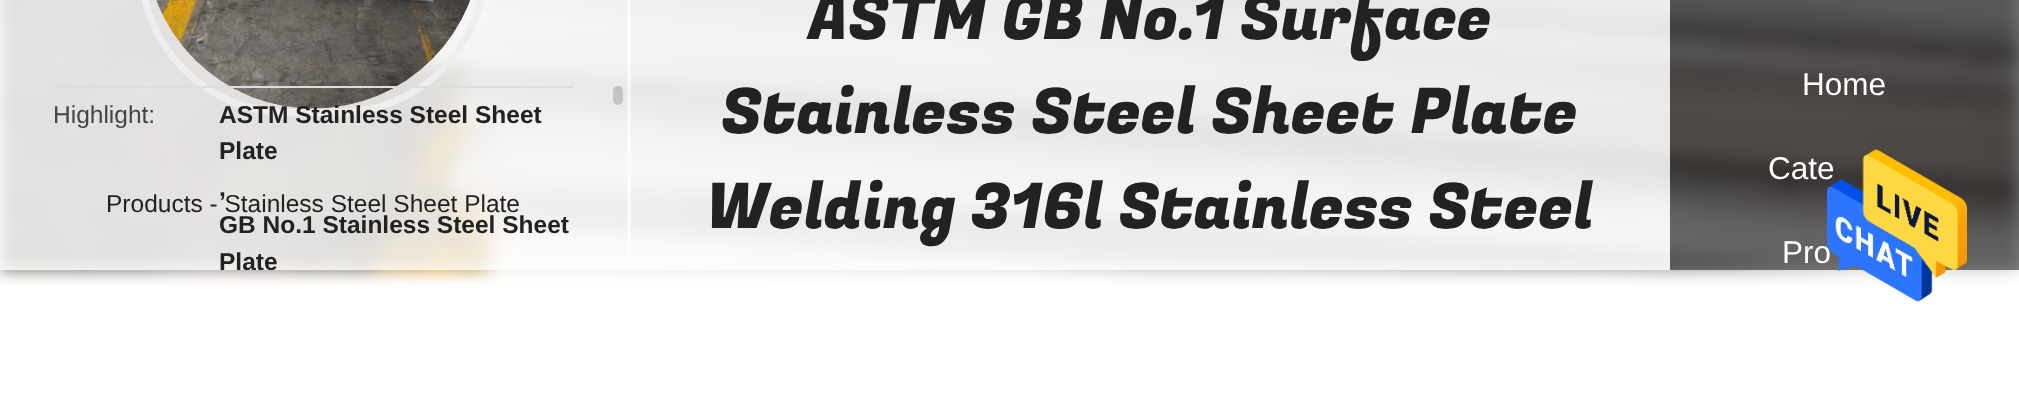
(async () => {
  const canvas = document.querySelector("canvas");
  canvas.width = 2019;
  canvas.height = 415;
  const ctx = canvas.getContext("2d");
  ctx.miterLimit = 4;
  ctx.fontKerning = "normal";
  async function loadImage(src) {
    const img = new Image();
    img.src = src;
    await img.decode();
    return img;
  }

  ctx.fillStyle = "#ffffff";
  ctx.fillRect(0, 0, 2019, 415);
  ctx.drawImage(await loadImage("img/1.png"), 0, 0, 2019, 286);
  ctx.fillStyle = "rgba(255, 255, 255, 0.8)";
  ctx.fillRect(0, 0, 630, 270);
  ctx.fillStyle = "rgba(255, 255, 255, 0.6)";
  ctx.fillRect(627, 0, 4, 270);
  ctx.fillStyle = "rgba(170, 170, 170, 0.6)";
  ctx.beginPath();
  ctx.roundRect(613, 86, 10, 19, 5);
  ctx.fill();
  ctx.beginPath();
  ctx.roundRect(141.5, -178.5, 343, 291, 171.5);
  ctx.strokeStyle = "#eeeeee";
  ctx.lineWidth = 7;
  ctx.stroke();
  ctx.drawImage(await loadImage("img/2.png"), 156, 0, 314, 109);
  for (const [x, y, w, h, color] of [
    [53, 86, 521, 2, "#dddddd"],
    [630, 0, 1040, 270, "rgba(255, 255, 255, 0.8)"],
    [1670, 0, 349, 270, "rgba(0, 0, 0, 0.5)"],
  ]) {
    ctx.fillStyle = color;
    ctx.fillRect(x, y, w, h);
  }
  ctx.font = "24.5px Liberation Sans";
  ctx.fillStyle = "#444444";
  ctx.fillText("Highlight:", 53, 123);
  ctx.font = "bold 24.5px Liberation Sans";
  ctx.fillStyle = "#222222";
  for (const [text, x, y] of [
    ["ASTM Stainless Steel Sheet", 219, 123],
    ["Plate", 219, 159],
    ["GB No.1 Stainless Steel Sheet", 219, 233],
  ]) {
    ctx.fillText(text, x, y);
  }
  ctx.save();
  ctx.beginPath();
  ctx.rect(53, 88, 521, 182);
  ctx.clip();
  ctx.fillText("Plate", 219, 270);
  ctx.restore();
  ctx.font = "24.5px Liberation Sans";
  ctx.fillText("Products - Stainless Steel Sheet Plate", 106, 212);
  ctx.font = "bold 24.5px Liberation Sans";
  ctx.fillText(",", 219, 196);
  ctx.font = "63px Fugaz One";
  for (const [text, x, y] of [
    ["ASTM GB No.1 Surface", 808, 39],
    ["Stainless Steel Sheet Plate", 721, 133],
    ["Welding 316l Stainless Steel", 706, 228],
  ]) {
    ctx.fillText(text, x, y);
  }
  ctx.font = "31.5px Liberation Sans";
  ctx.fillStyle = "#ffffff";
  for (const [text, x, y] of [
    ["Home", 1802, 95],
    ["Cate", 1768, 179],
    ["Pro", 1782, 263],
  ]) {
    ctx.fillText(text, x, y);
  }
  ctx.drawImage(await loadImage("img/3.png"), 1827, 149, 140, 153);
})();
